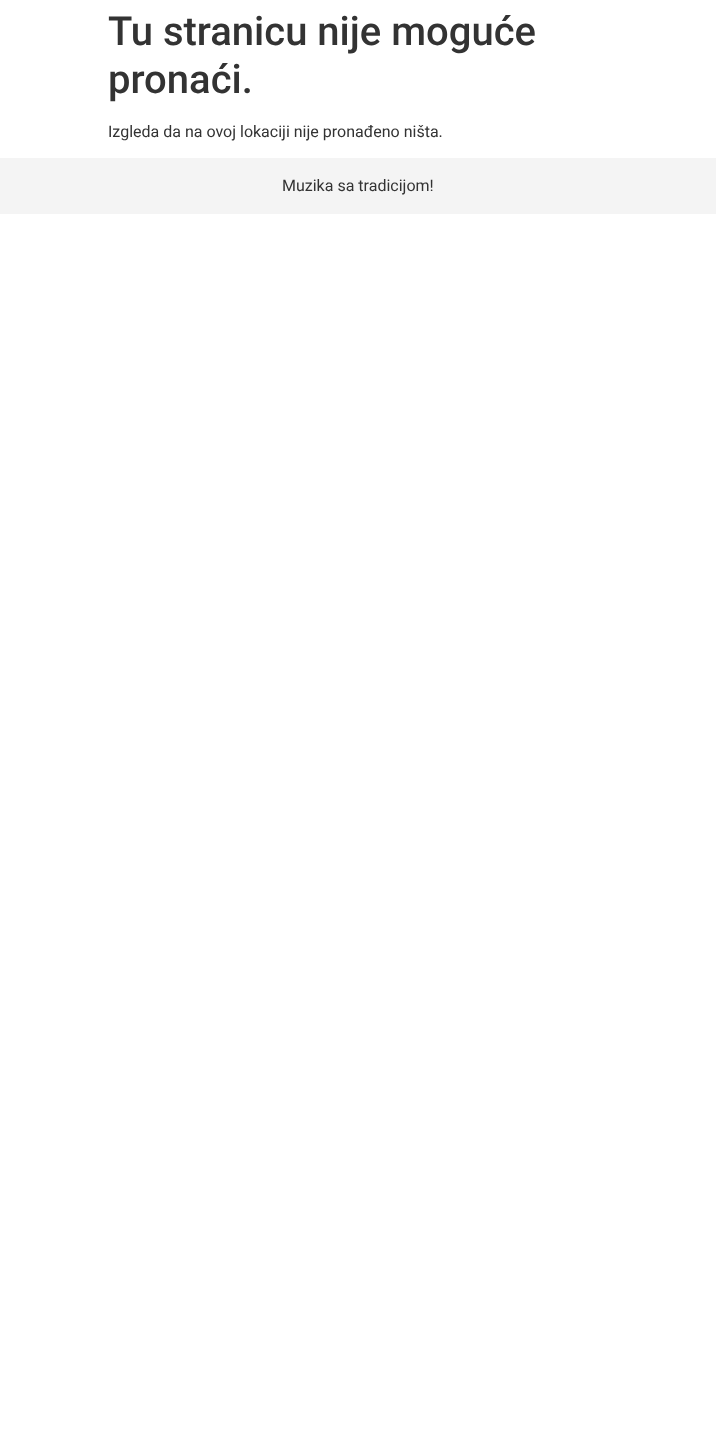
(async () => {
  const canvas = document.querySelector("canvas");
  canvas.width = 716;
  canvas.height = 1450;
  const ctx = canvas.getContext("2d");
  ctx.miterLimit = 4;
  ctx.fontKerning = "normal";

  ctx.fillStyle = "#ffffff";
  ctx.fillRect(0, 0, 716, 1450);
  ctx.fillStyle = "#f4f4f4";
  ctx.fillRect(0, 158, 716, 56);
  ctx.font = "500 40px Roboto";
  ctx.fillStyle = "#333333";
  ctx.fillText("Tu stranicu nije moguće", 108, 45);
  ctx.fillText("pronaći.", 108, 93);
  ctx.font = "16px Roboto";
  ctx.fillText("Izgleda da na ovoj lokaciji nije pronađeno ništa.", 108, 137);
  ctx.fillText("Muzika sa tradicijom!", 282, 191);
})();
